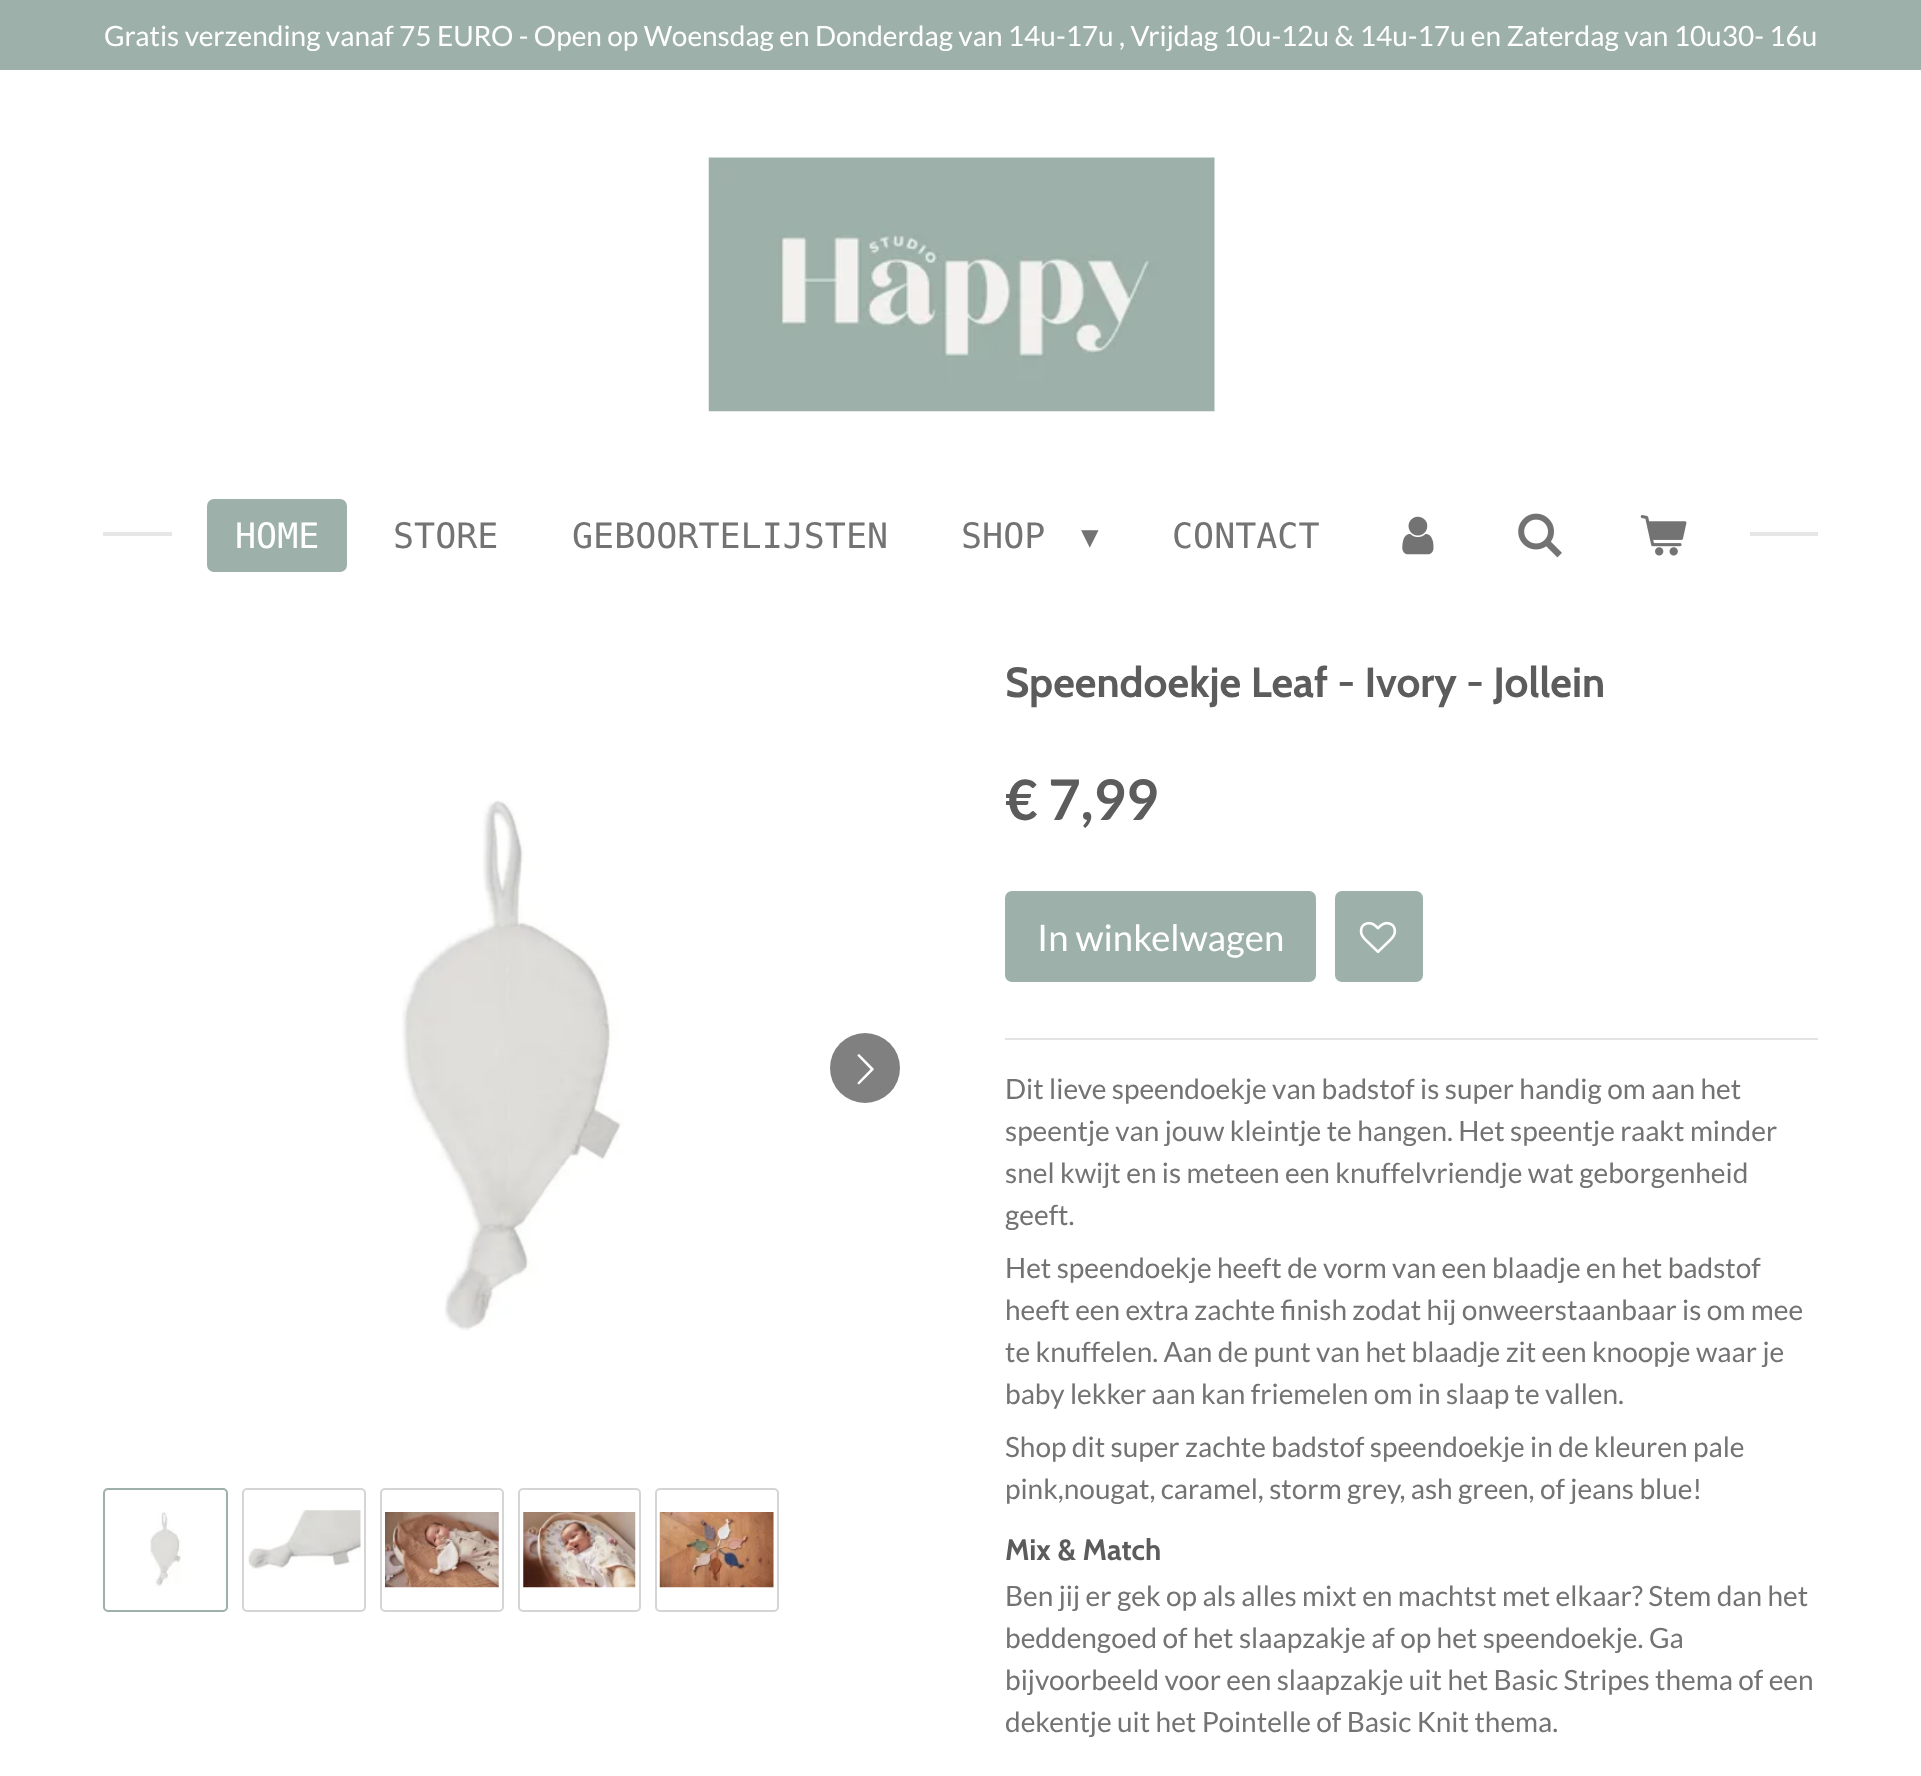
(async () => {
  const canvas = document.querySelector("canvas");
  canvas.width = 1921;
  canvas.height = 1776;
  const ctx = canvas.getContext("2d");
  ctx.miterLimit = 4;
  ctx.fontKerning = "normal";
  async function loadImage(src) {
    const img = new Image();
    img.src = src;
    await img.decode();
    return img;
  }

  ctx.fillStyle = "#ffffff";
  ctx.fillRect(0, 0, 1921, 1776);
  ctx.fillStyle = "#9db0aa";
  ctx.fillRect(0, 0, 1921, 70);
  ctx.drawImage(await loadImage("img/1.png"), 708, 157, 507, 255);
  ctx.fillStyle = "#e6e6e6";
  ctx.fillRect(103, 532, 69, 4);
  ctx.fillStyle = "#9db0aa";
  ctx.beginPath();
  ctx.roundRect(207, 499, 140, 73, 7);
  ctx.fill();
  ctx.drawImage(await loadImage("img/2.png"), 1402, 516, 32, 39);
  ctx.drawImage(await loadImage("img/3.png"), 1518, 513, 44, 45);
  ctx.drawImage(await loadImage("img/4.png"), 1640, 515, 47, 41);
  ctx.fillStyle = "#e6e6e6";
  ctx.fillRect(1750, 532, 68, 4);
  ctx.drawImage(await loadImage("img/5.png"), 402, 800, 222, 531);
  ctx.fillStyle = "#808080";
  ctx.beginPath();
  ctx.arc(865, 1068, 35, 0, Math.PI * 2);
  ctx.fill();
  ctx.drawImage(await loadImage("img/6.png"), 857, 1054, 17, 31);
  ctx.beginPath();
  ctx.roundRect(104, 1489, 123, 122, 4);
  ctx.strokeStyle = "#9db0aa";
  ctx.lineWidth = 2;
  ctx.stroke();
  ctx.drawImage(await loadImage("img/7.png"), 150, 1512, 31, 75);
  ctx.beginPath();
  ctx.roundRect(243, 1489, 122, 122, 4);
  ctx.strokeStyle = "#d5d5d5";
  ctx.stroke();
  ctx.drawImage(await loadImage("img/8.png"), 248, 1510, 113, 60);
  ctx.beginPath();
  ctx.roundRect(381, 1489, 122, 122, 4);
  ctx.stroke();
  ctx.drawImage(await loadImage("img/9.png"), 385, 1512, 114, 76);
  ctx.beginPath();
  ctx.roundRect(519, 1489, 121, 122, 4);
  ctx.stroke();
  ctx.drawImage(await loadImage("img/10.png"), 523, 1512, 113, 76);
  ctx.beginPath();
  ctx.roundRect(656, 1489, 122, 122, 4);
  ctx.stroke();
  ctx.drawImage(await loadImage("img/11.png"), 659, 1512, 115, 76);
  ctx.fillStyle = "#9db0aa";
  ctx.beginPath();
  ctx.roundRect(1005, 891, 311, 91, 7);
  ctx.fill();
  ctx.beginPath();
  ctx.roundRect(1335, 891, 88, 91, 7);
  ctx.fill();
  ctx.drawImage(await loadImage("img/12.png"), 1359, 921, 38, 33);
  ctx.fillStyle = "#e3e3e3";
  ctx.fillRect(1005, 1038, 813, 2);
  ctx.font = "28px Lato";
  ctx.fillStyle = "#ffffff";
  ctx.fillText("Gratis verzending vanaf 75 EURO - Open op Woensdag en Donderdag van 14u-17u , Vrijdag 10u-12u & 14u-17u en Zaterdag van 10u30- 16u", 104, 46);
  ctx.font = "35px DejaVu Sans Mono";
  ctx.fillText("HOME", 235, 548);
  ctx.fillStyle = "#737373";
  for (const [text, x, y] of [
    ["STORE", 393, 548],
    ["GEBOORTELIJSTEN", 572, 548],
    ["SHOP", 961, 548],
  ]) {
    ctx.fillText(text, x, y);
  }
  ctx.font = "35px DejaVu Sans";
  ctx.fillText("▾", 1081, 548);
  ctx.font = "35px DejaVu Sans Mono";
  ctx.fillText("CONTACT", 1172, 548);
  ctx.font = "bold 42px Cabin";
  ctx.fillStyle = "#5c5c5c";
  ctx.fillText("Speendoekje Leaf - Ivory - Jollein", 1005, 697);
  ctx.font = "bold 56px Lato";
  ctx.fillText("€ 7,99", 1005, 820);
  ctx.font = "36.5px Lato";
  ctx.fillStyle = "#ffffff";
  ctx.fillText("In winkelwagen", 1037, 951);
  ctx.font = "28px Lato";
  ctx.fillStyle = "#737373";
  for (const [text, x, y] of [
    ["Dit lieve speendoekje van badstof is super handig om aan het", 1005, 1099],
    ["speentje van jouw kleintje te hangen. Het speentje raakt minder", 1005, 1141],
    ["snel kwijt en is meteen een knuffelvriendje wat geborgenheid", 1005, 1183],
    ["geeft.", 1005, 1225],
    ["Het speendoekje heeft de vorm van een blaadje en het badstof", 1005, 1278],
    ["heeft een extra zachte finish zodat hij onweerstaanbaar is om mee", 1005, 1320],
    ["te knuffelen. Aan de punt van het blaadje zit een knoopje waar je", 1005, 1362],
    ["baby lekker aan kan friemelen om in slaap te vallen.", 1005, 1404],
    ["Shop dit super zachte badstof speendoekje in de kleuren pale", 1005, 1457],
    ["pink,nougat, caramel, storm grey, ash green, of jeans blue!", 1005, 1499],
  ]) {
    ctx.fillText(text, x, y);
  }
  ctx.font = "bold 29.5px Cabin";
  ctx.fillStyle = "#5c5c5c";
  ctx.fillText("Mix & Match", 1005, 1560);
  ctx.font = "28px Lato";
  ctx.fillStyle = "#737373";
  for (const [text, x, y] of [
    ["Ben jij er gek op als alles mixt en machtst met elkaar? Stem dan het", 1005, 1606],
    ["beddengoed of het slaapzakje af op het speendoekje. Ga", 1005, 1648],
    ["bijvoorbeeld voor een slaapzakje uit het Basic Stripes thema of een", 1005, 1690],
    ["dekentje uit het Pointelle of Basic Knit thema.", 1005, 1732],
  ]) {
    ctx.fillText(text, x, y);
  }
})();
